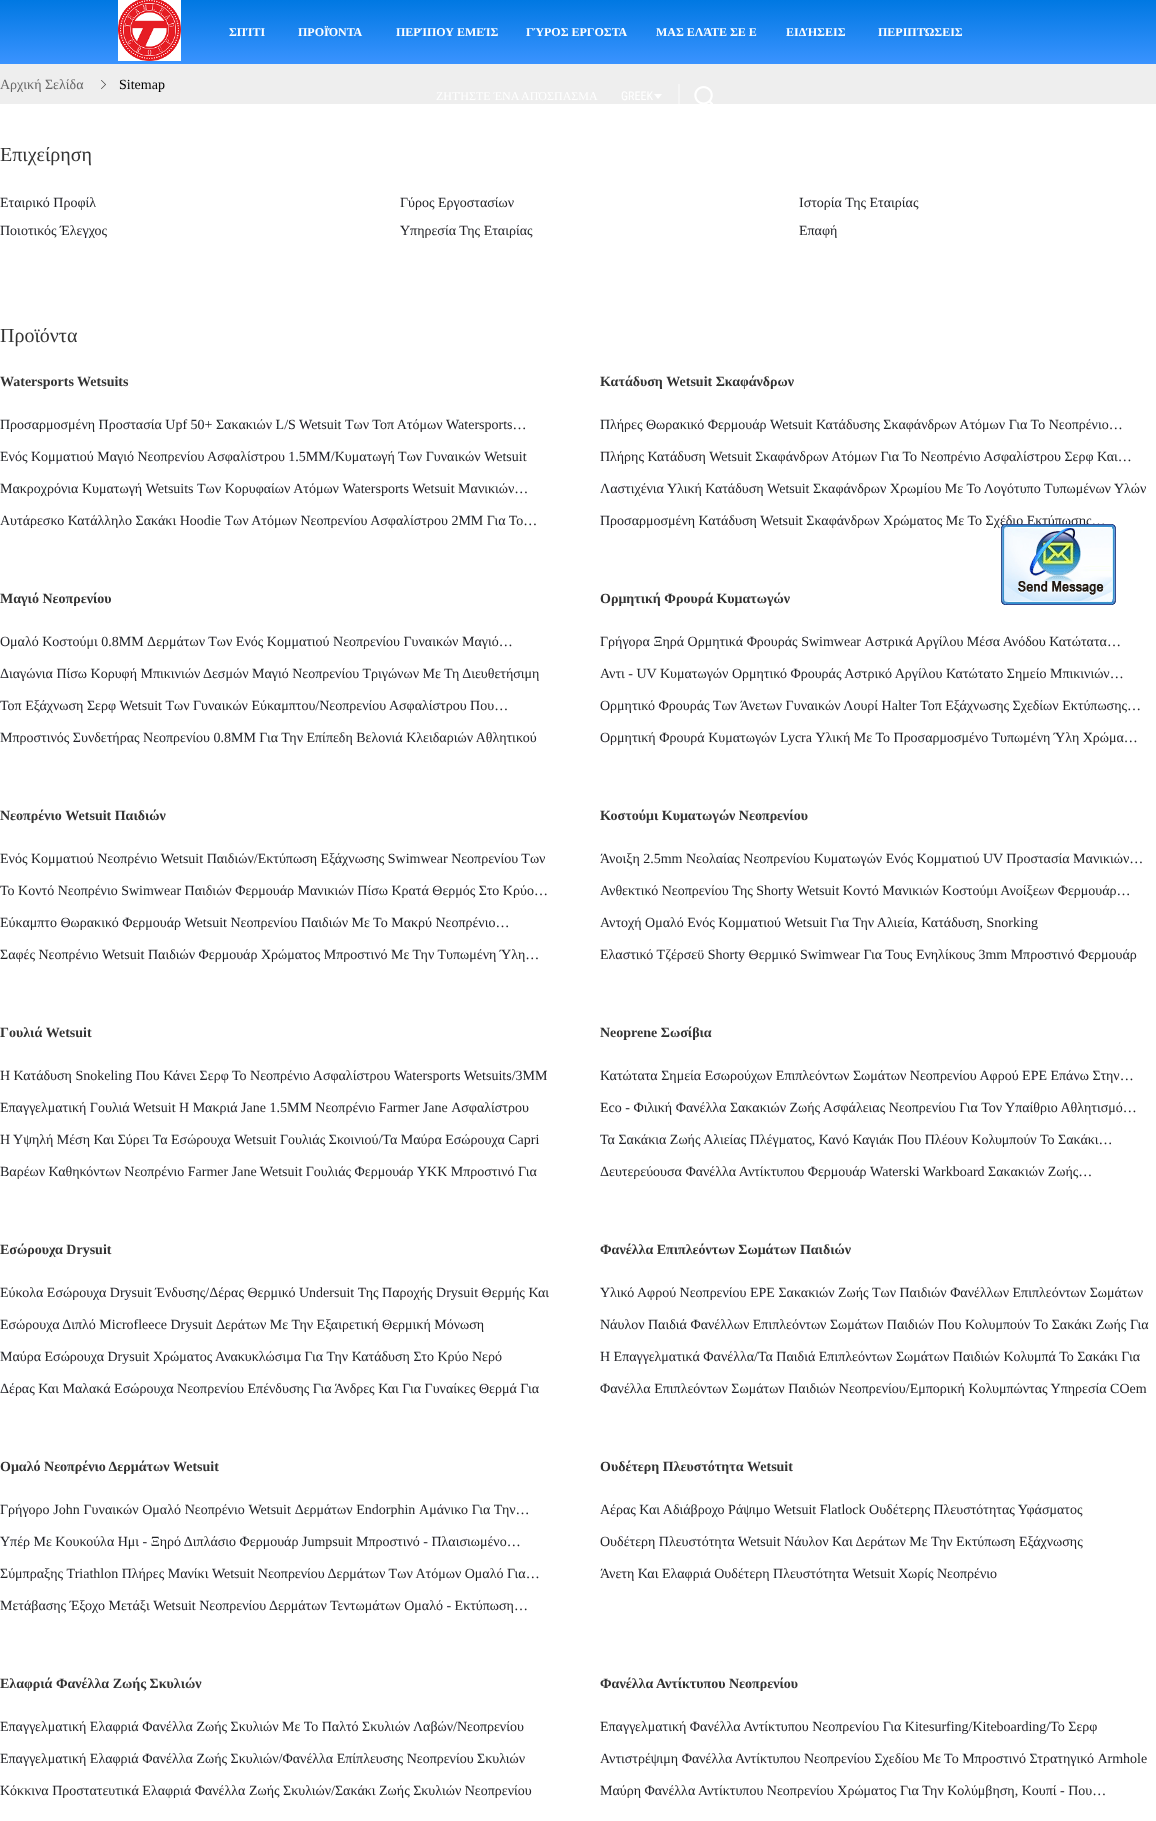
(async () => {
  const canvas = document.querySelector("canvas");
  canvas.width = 1156;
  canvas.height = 1821;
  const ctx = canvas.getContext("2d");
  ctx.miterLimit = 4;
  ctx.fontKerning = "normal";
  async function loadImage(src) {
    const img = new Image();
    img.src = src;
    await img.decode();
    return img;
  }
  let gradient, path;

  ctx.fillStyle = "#ffffff";
  ctx.fillRect(0, 0, 1156, 1821);
  ctx.fillStyle = "#eeeeee";
  ctx.fillRect(0, 64, 1156, 40);
  ctx.fillStyle = "#f5f5f5";
  ctx.fillRect(678, 84, 2, 20);
  ctx.drawImage(await loadImage("img/1.png"), 101, 80, 5, 9);
  gradient = ctx.createLinearGradient(578, 0, 578, 64);
  gradient.addColorStop(0, "#0078e2");
  gradient.addColorStop(1, "#3a93ff");
  ctx.fillStyle = gradient;
  ctx.fillRect(0, 0, 1156, 64);
  ctx.drawImage(await loadImage("img/2.png"), 118, 0, 63, 61);
  ctx.fillStyle = "#ffffff";
  path = new Path2D("M654 94H662L658 99Z");
  ctx.fill(path);
  ctx.drawImage(await loadImage("img/3.png"), 694, 86, 19, 18);
  ctx.font = "14px Liberation Serif";
  ctx.fillStyle = "#666666";
  ctx.fillText("Αρχική Σελίδα", 0, 89);
  ctx.fillStyle = "#000000";
  ctx.fillText("Sitemap", 119, 89);
  ctx.font = "bold 12px Liberation Serif";
  ctx.fillStyle = "#ffffff";
  for (const [text, x, y] of [
    ["ΣΠΊΤΙ", 229, 36],
    ["ΠΡΟΪΌΝΤΑ", 298, 36],
    ["ΠΕΡΊΠΟΥ ΕΜΕΊΣ", 396, 36],
    ["ΓΎΡΟΣ ΕΡΓΟΣΤΑ", 526, 36],
    ["ΜΑΣ ΕΛΆΤΕ ΣΕ Ε", 656, 36],
    ["ΕΙΔΉΣΕΙΣ", 786, 36],
    ["ΠΕΡΙΠΤΏΣΕΙΣ", 878, 36],
  ]) {
    ctx.fillText(text, x, y);
  }
  ctx.font = "12px Liberation Serif";
  ctx.fillText("ΖΗΤΉΣΤΕ ΈΝΑ ΑΠΌΣΠΑΣΜΑ", 436, 100);
  ctx.font = "12px Roboto Condensed";
  ctx.fillText("GREEK", 621, 100);
  ctx.font = "20px Liberation Serif";
  ctx.fillStyle = "#333333";
  ctx.fillText("Επιχείρηση", 0, 161);
  ctx.font = "14px Liberation Serif";
  ctx.fillStyle = "#222328";
  for (const [text, x, y] of [
    ["Εταιρικό Προφίλ", 0, 207],
    ["Γύρος Εργοστασίων", 400, 207],
    ["Ιστορία Της Εταιρίας", 799, 207],
    ["Ποιοτικός Έλεγχος", 0, 235],
    ["Υπηρεσία Της Εταιρίας", 400, 235],
    ["Επαφή", 799, 235],
  ]) {
    ctx.fillText(text, x, y);
  }
  ctx.font = "20px Liberation Serif";
  ctx.fillStyle = "#333333";
  ctx.fillText("Προϊόντα", 0, 342);
  ctx.font = "bold 14px Liberation Serif";
  ctx.fillText("Watersports Wetsuits", 0, 386);
  ctx.font = "14px Liberation Serif";
  ctx.fillStyle = "#222328";
  for (const [text, x, y] of [
    ["Προσαρμοσμένη Προστασία Upf 50+ Σακακιών L/S Wetsuit Των Τοπ Ατόμων Watersports…", 0, 429],
    ["Ενός Κομματιού Μαγιό Νεοπρενίου Ασφαλίστρου 1.5MM/Κυματωγή Των Γυναικών Wetsuit", 0, 461],
    ["Μακροχρόνια Κυματωγή Wetsuits Των Κορυφαίων Ατόμων Watersports Wetsuit Μανικιών…", 0, 493],
    ["Αυτάρεσκο Κατάλληλο Σακάκι Hoodie Των Ατόμων Νεοπρενίου Ασφαλίστρου 2MM Για Το…", 0, 525],
  ]) {
    ctx.fillText(text, x, y);
  }
  ctx.font = "bold 14px Liberation Serif";
  ctx.fillStyle = "#333333";
  ctx.fillText("Κατάδυση Wetsuit Σκαφάνδρων", 600, 386);
  ctx.font = "14px Liberation Serif";
  ctx.fillStyle = "#222328";
  for (const [text, x, y] of [
    ["Πλήρες Θωρακικό Φερμουάρ Wetsuit Κατάδυσης Σκαφάνδρων Ατόμων Για Το Νεοπρένιο…", 600, 429],
    ["Πλήρης Κατάδυση Wetsuit Σκαφάνδρων Ατόμων Για Το Νεοπρένιο Ασφαλίστρου Σερφ Και…", 600, 461],
    ["Λαστιχένια Υλική Κατάδυση Wetsuit Σκαφάνδρων Χρωμίου Με Το Λογότυπο Τυπωμένων Υλών", 600, 493],
    ["Προσαρμοσμένη Κατάδυση Wetsuit Σκαφάνδρων Χρώματος Με Το Σχέδιο Εκτύπωσης…", 600, 525],
  ]) {
    ctx.fillText(text, x, y);
  }
  ctx.font = "bold 14px Liberation Serif";
  ctx.fillStyle = "#333333";
  ctx.fillText("Μαγιό Νεοπρενίου", 0, 603);
  ctx.font = "14px Liberation Serif";
  ctx.fillStyle = "#222328";
  for (const [text, x, y] of [
    ["Ομαλό Κοστούμι 0.8MM Δερμάτων Των Ενός Κομματιού Νεοπρενίου Γυναικών Μαγιό…", 0, 646],
    ["Διαγώνια Πίσω Κορυφή Μπικινιών Δεσμών Μαγιό Νεοπρενίου Τριγώνων Με Τη Διευθετήσιμη", 0, 678],
    ["Τοπ Εξάχνωση Σερφ Wetsuit Των Γυναικών Εύκαμπτου/Νεοπρενίου Ασφαλίστρου Που…", 0, 710],
    ["Μπροστινός Συνδετήρας Νεοπρενίου 0.8MM Για Την Επίπεδη Βελονιά Κλειδαριών Αθλητικού", 0, 742],
  ]) {
    ctx.fillText(text, x, y);
  }
  ctx.font = "bold 14px Liberation Serif";
  ctx.fillStyle = "#333333";
  ctx.fillText("Ορμητική Φρουρά Κυματωγών", 600, 603);
  ctx.font = "14px Liberation Serif";
  ctx.fillStyle = "#222328";
  for (const [text, x, y] of [
    ["Γρήγορα Ξηρά Ορμητικά Φρουράς Swimwear Αστρικά Αργίλου Μέσα Ανόδου Κατώτατα…", 600, 646],
    ["Αντι - UV Κυματωγών Ορμητικό Φρουράς Αστρικό Αργίλου Κατώτατο Σημείο Μπικινιών…", 600, 678],
    ["Ορμητικό Φρουράς Των Άνετων Γυναικών Λουρί Halter Τοπ Εξάχνωσης Σχεδίων Εκτύπωσης…", 600, 710],
    ["Ορμητική Φρουρά Κυματωγών Lycra Υλική Με Το Προσαρμοσμένο Τυπωμένη Ύλη Χρώμα…", 600, 742],
  ]) {
    ctx.fillText(text, x, y);
  }
  ctx.font = "bold 14px Liberation Serif";
  ctx.fillStyle = "#333333";
  ctx.fillText("Νεοπρένιο Wetsuit Παιδιών", 0, 820);
  ctx.font = "14px Liberation Serif";
  ctx.fillStyle = "#222328";
  for (const [text, x, y] of [
    ["Ενός Κομματιού Νεοπρένιο Wetsuit Παιδιών/Εκτύπωση Εξάχνωσης Swimwear Νεοπρενίου Των", 0, 863],
    ["Το Κοντό Νεοπρένιο Swimwear Παιδιών Φερμουάρ Μανικιών Πίσω Κρατά Θερμός Στο Κρύο…", 0, 895],
    ["Εύκαμπτο Θωρακικό Φερμουάρ Wetsuit Νεοπρενίου Παιδιών Με Το Μακρύ Νεοπρένιο…", 0, 927],
    ["Σαφές Νεοπρένιο Wetsuit Παιδιών Φερμουάρ Χρώματος Μπροστινό Με Την Τυπωμένη Ύλη…", 0, 959],
  ]) {
    ctx.fillText(text, x, y);
  }
  ctx.font = "bold 14px Liberation Serif";
  ctx.fillStyle = "#333333";
  ctx.fillText("Κοστούμι Κυματωγών Νεοπρενίου", 600, 820);
  ctx.font = "14px Liberation Serif";
  ctx.fillStyle = "#222328";
  for (const [text, x, y] of [
    ["Άνοιξη 2.5mm Νεολαίας Νεοπρενίου Κυματωγών Ενός Κομματιού UV Προστασία Μανικιών…", 600, 863],
    ["Ανθεκτικό Νεοπρενίου Της Shorty Wetsuit Κοντό Μανικιών Κοστούμι Ανοίξεων Φερμουάρ…", 600, 895],
    ["Αντοχή Ομαλό Ενός Κομματιού Wetsuit Για Την Αλιεία, Κατάδυση, Snorking", 600, 927],
    ["Ελαστικό Τζέρσεϋ Shorty Θερμικό Swimwear Για Τους Ενηλίκους 3mm Μπροστινό Φερμουάρ", 600, 959],
  ]) {
    ctx.fillText(text, x, y);
  }
  ctx.font = "bold 14px Liberation Serif";
  ctx.fillStyle = "#333333";
  ctx.fillText("Γουλιά Wetsuit", 0, 1037);
  ctx.font = "14px Liberation Serif";
  ctx.fillStyle = "#222328";
  for (const [text, x, y] of [
    ["Η Κατάδυση Snokeling Που Κάνει Σερφ Το Νεοπρένιο Ασφαλίστρου Watersports Wetsuits/3MM", 0, 1080],
    ["Επαγγελματική Γουλιά Wetsuit Η Μακριά Jane 1.5MM Νεοπρένιο Farmer Jane Ασφαλίστρου", 0, 1112],
    ["Η Υψηλή Μέση Και Σύρει Τα Εσώρουχα Wetsuit Γουλιάς Σκοινιού/Τα Μαύρα Εσώρουχα Capri", 0, 1144],
    ["Βαρέων Καθηκόντων Νεοπρένιο Farmer Jane Wetsuit Γουλιάς Φερμουάρ YKK Μπροστινό Για", 0, 1176],
  ]) {
    ctx.fillText(text, x, y);
  }
  ctx.font = "bold 14px Liberation Serif";
  ctx.fillStyle = "#333333";
  ctx.fillText("Neoprene Σωσίβια", 600, 1037);
  ctx.font = "14px Liberation Serif";
  ctx.fillStyle = "#222328";
  for (const [text, x, y] of [
    ["Κατώτατα Σημεία Εσωρούχων Επιπλεόντων Σωμάτων Νεοπρενίου Αφρού EPE Επάνω Στην…", 600, 1080],
    ["Eco - Φιλική Φανέλλα Σακακιών Ζωής Ασφάλειας Νεοπρενίου Για Τον Υπαίθριο Αθλητισμό…", 600, 1112],
    ["Τα Σακάκια Ζωής Αλιείας Πλέγματος, Κανό Καγιάκ Που Πλέουν Κολυμπούν Το Σακάκι…", 600, 1144],
    ["Δευτερεύουσα Φανέλλα Αντίκτυπου Φερμουάρ Waterski Warkboard Σακακιών Ζωής…", 600, 1176],
  ]) {
    ctx.fillText(text, x, y);
  }
  ctx.font = "bold 14px Liberation Serif";
  ctx.fillStyle = "#333333";
  ctx.fillText("Εσώρουχα Drysuit", 0, 1254);
  ctx.font = "14px Liberation Serif";
  ctx.fillStyle = "#222328";
  for (const [text, x, y] of [
    ["Εύκολα Εσώρουχα Drysuit Ένδυσης/Δέρας Θερμικό Undersuit Της Παροχής Drysuit Θερμής Και", 0, 1297],
    ["Εσώρουχα Διπλό Microfleece Drysuit Δεράτων Με Την Εξαιρετική Θερμική Μόνωση", 0, 1329],
    ["Μαύρα Εσώρουχα Drysuit Χρώματος Ανακυκλώσιμα Για Την Κατάδυση Στο Κρύο Νερό", 0, 1361],
    ["Δέρας Και Μαλακά Εσώρουχα Νεοπρενίου Επένδυσης Για Άνδρες Και Για Γυναίκες Θερμά Για", 0, 1393],
  ]) {
    ctx.fillText(text, x, y);
  }
  ctx.font = "bold 14px Liberation Serif";
  ctx.fillStyle = "#333333";
  ctx.fillText("Φανέλλα Επιπλεόντων Σωμάτων Παιδιών", 600, 1254);
  ctx.font = "14px Liberation Serif";
  ctx.fillStyle = "#222328";
  for (const [text, x, y] of [
    ["Υλικό Αφρού Νεοπρενίου EPE Σακακιών Ζωής Των Παιδιών Φανέλλων Επιπλεόντων Σωμάτων", 600, 1297],
    ["Νάυλον Παιδιά Φανέλλων Επιπλεόντων Σωμάτων Παιδιών Που Κολυμπούν Το Σακάκι Ζωής Για", 600, 1329],
    ["Η Επαγγελματικά Φανέλλα/Τα Παιδιά Επιπλεόντων Σωμάτων Παιδιών Κολυμπά Το Σακάκι Για", 600, 1361],
    ["Φανέλλα Επιπλεόντων Σωμάτων Παιδιών Νεοπρενίου/Εμπορική Κολυμπώντας Υπηρεσία COem", 600, 1393],
  ]) {
    ctx.fillText(text, x, y);
  }
  ctx.font = "bold 14px Liberation Serif";
  ctx.fillStyle = "#333333";
  ctx.fillText("Ομαλό Νεοπρένιο Δερμάτων Wetsuit", 0, 1471);
  ctx.wordSpacing = "0.25px";
  ctx.font = "14px Liberation Serif";
  ctx.fillStyle = "#222328";
  ctx.fillText("Γρήγορο John Γυναικών Ομαλό Νεοπρένιο Wetsuit Δερμάτων Endorphin Αμάνικο Για Την…", 0, 1514);
  ctx.wordSpacing = "0px";
  for (const [text, x, y] of [
    ["Υπέρ Με Κουκούλα Ημι - Ξηρό Διπλάσιο Φερμουάρ Jumpsuit Μπροστινό - Πλαισιωμένο…", 0, 1546],
    ["Σύμπραξης Triathlon Πλήρες Μανίκι Wetsuit Νεοπρενίου Δερμάτων Των Ατόμων Ομαλό Για…", 0, 1578],
    ["Μετάβασης Έξοχο Μετάξι Wetsuit Νεοπρενίου Δερμάτων Τεντωμάτων Ομαλό - Εκτύπωση…", 0, 1610],
  ]) {
    ctx.fillText(text, x, y);
  }
  ctx.font = "bold 14px Liberation Serif";
  ctx.fillStyle = "#333333";
  ctx.fillText("Ουδέτερη Πλευστότητα Wetsuit", 600, 1471);
  ctx.font = "14px Liberation Serif";
  ctx.fillStyle = "#222328";
  for (const [text, x, y] of [
    ["Αέρας Και Αδιάβροχο Ράψιμο Wetsuit Flatlock Ουδέτερης Πλευστότητας Υφάσματος", 600, 1514],
    ["Ουδέτερη Πλευστότητα Wetsuit Νάυλον Και Δεράτων Με Την Εκτύπωση Εξάχνωσης", 600, 1546],
    ["Άνετη Και Ελαφριά Ουδέτερη Πλευστότητα Wetsuit Χωρίς Νεοπρένιο", 600, 1578],
  ]) {
    ctx.fillText(text, x, y);
  }
  ctx.font = "bold 14px Liberation Serif";
  ctx.fillStyle = "#333333";
  ctx.fillText("Ελαφριά Φανέλλα Ζωής Σκυλιών", 0, 1688);
  ctx.font = "14px Liberation Serif";
  ctx.fillStyle = "#222328";
  for (const [text, x, y] of [
    ["Επαγγελματική Ελαφριά Φανέλλα Ζωής Σκυλιών Με Το Παλτό Σκυλιών Λαβών/Νεοπρενίου", 0, 1731],
    ["Επαγγελματική Ελαφριά Φανέλλα Ζωής Σκυλιών/Φανέλλα Επίπλευσης Νεοπρενίου Σκυλιών", 0, 1763],
    ["Κόκκινα Προστατευτικά Ελαφριά Φανέλλα Ζωής Σκυλιών/Σακάκι Ζωής Σκυλιών Νεοπρενίου", 0, 1795],
  ]) {
    ctx.fillText(text, x, y);
  }
  ctx.font = "bold 14px Liberation Serif";
  ctx.fillStyle = "#333333";
  ctx.fillText("Φανέλλα Αντίκτυπου Νεοπρενίου", 600, 1688);
  ctx.font = "14px Liberation Serif";
  ctx.fillStyle = "#222328";
  for (const [text, x, y] of [
    ["Επαγγελματική Φανέλλα Αντίκτυπου Νεοπρενίου Για Kitesurfing/Kiteboarding/Το Σερφ", 600, 1731],
    ["Αντιστρέψιμη Φανέλλα Αντίκτυπου Νεοπρενίου Σχεδίου Με Το Μπροστινό Στρατηγικό Armhole", 600, 1763],
    ["Μαύρη Φανέλλα Αντίκτυπου Νεοπρενίου Χρώματος Για Την Κολύμβηση, Κουπί - Που…", 600, 1795],
  ]) {
    ctx.fillText(text, x, y);
  }
  ctx.drawImage(await loadImage("img/4.png"), 1001, 524, 115, 81);
})();
